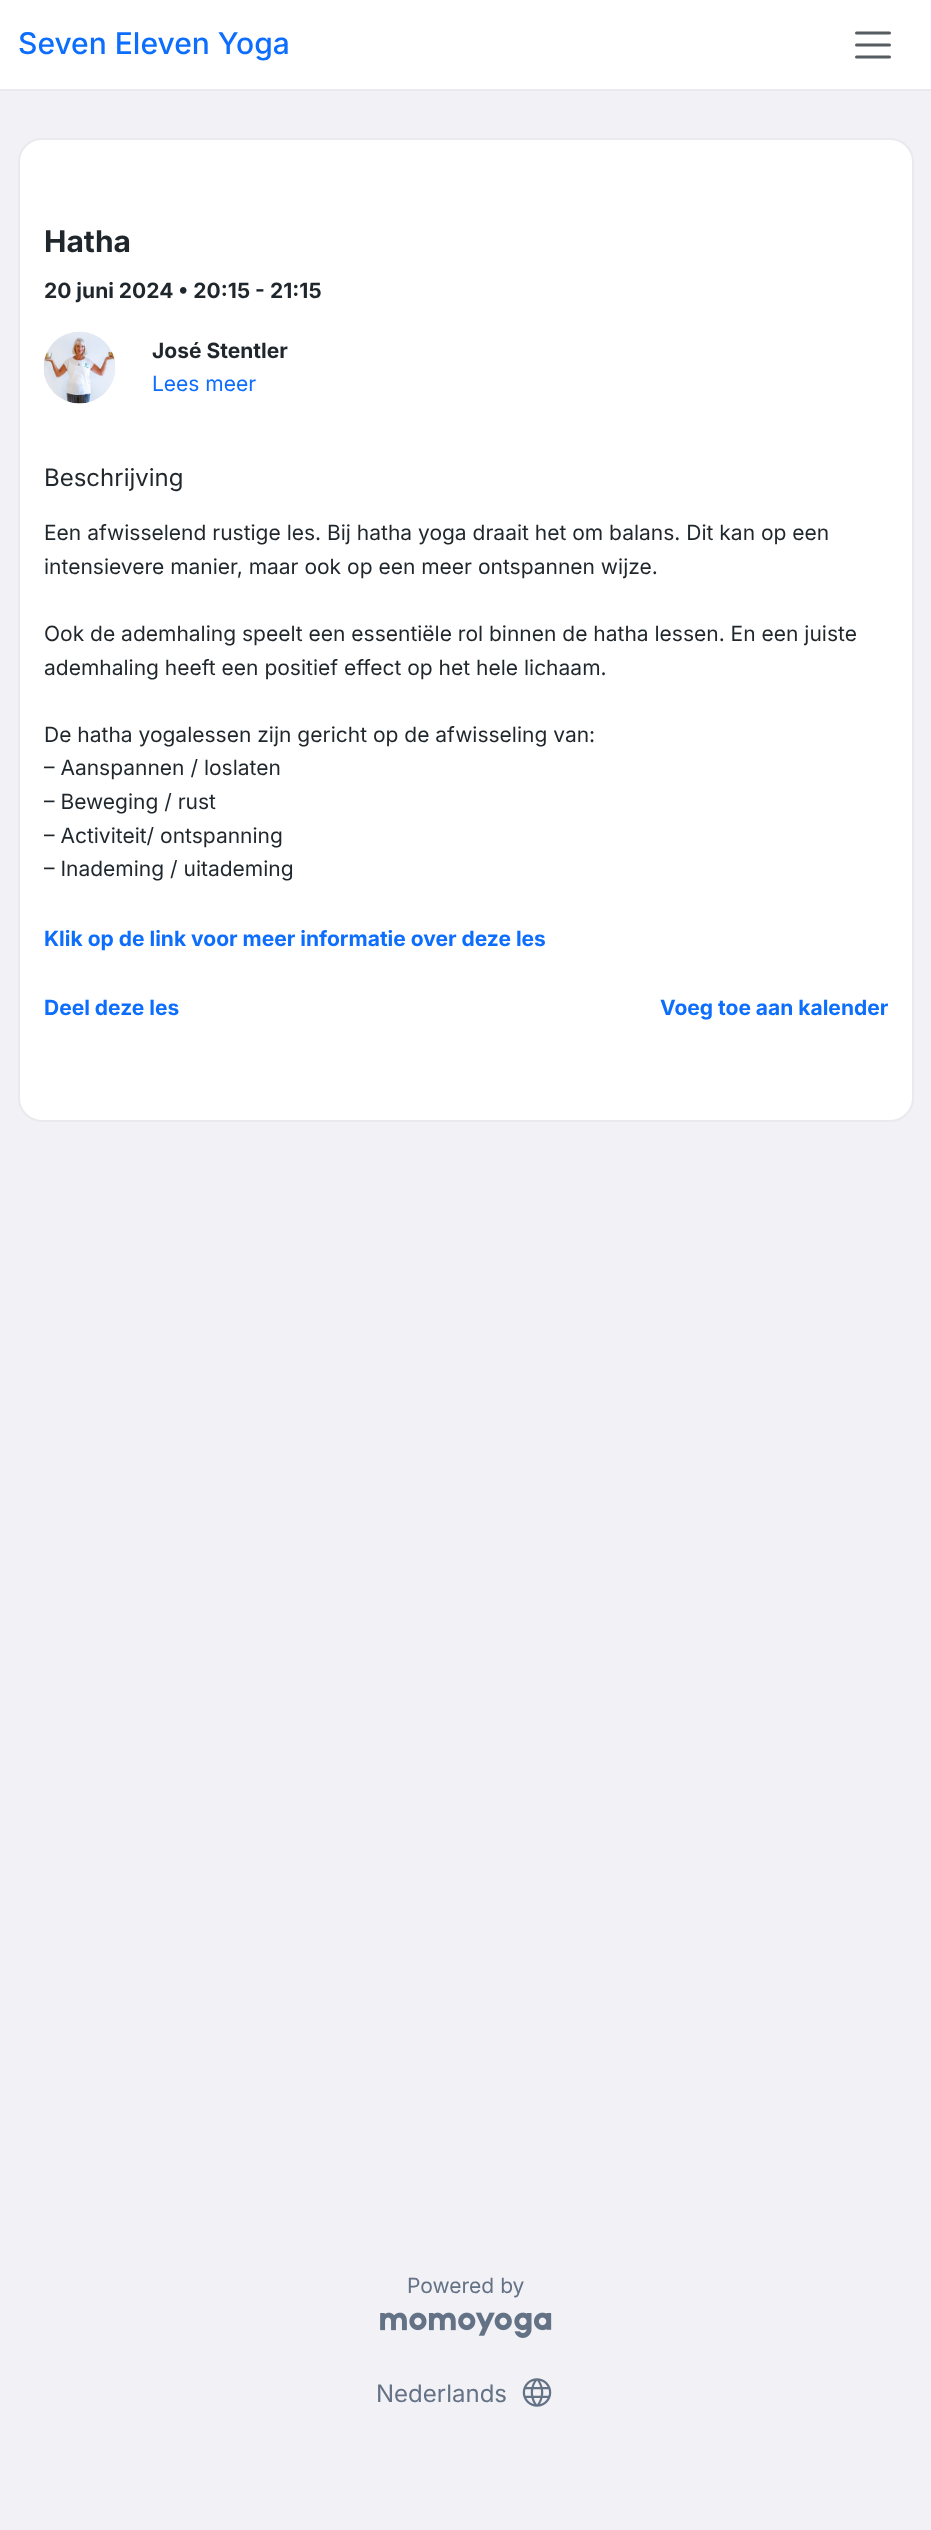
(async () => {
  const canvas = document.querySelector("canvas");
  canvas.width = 931;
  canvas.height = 2530;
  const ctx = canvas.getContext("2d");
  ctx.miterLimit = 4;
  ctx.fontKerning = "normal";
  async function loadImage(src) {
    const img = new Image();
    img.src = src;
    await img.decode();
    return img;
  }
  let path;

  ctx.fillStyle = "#f2f1f6";
  ctx.fillRect(0, 0, 931, 2530);
  ctx.fillStyle = "#ffffff";
  ctx.fillRect(0, 0, 931, 89);
  ctx.fillStyle = "#e8eaed";
  ctx.fillRect(0, 89, 931, 2);
  path = new Path2D("M856.5 33H889.5M856.5 45H889.5M856.5 57H889.5");
  ctx.strokeStyle = "#575c61";
  ctx.lineWidth = 3;
  ctx.lineCap = "round";
  ctx.stroke(path);
  ctx.fillStyle = "#ffffff";
  ctx.beginPath();
  ctx.roundRect(19, 139, 894, 982, 23);
  ctx.fill();
  ctx.strokeStyle = "#e8eaed";
  ctx.lineWidth = 2;
  ctx.stroke();
  ctx.drawImage(await loadImage("img/1.png"), 43, 331, 73, 73);
  ctx.drawImage(await loadImage("img/2.png"), 380, 2312, 172, 26);
  ctx.drawImage(await loadImage("img/3.png"), 522, 2378, 30, 29);
  ctx.font = "500 30px Inter";
  ctx.fillStyle = "#0d6efd";
  ctx.fillText("Seven Eleven Yoga", 18, 54);
  ctx.font = "bold 30px Inter";
  ctx.fillStyle = "#1f262c";
  ctx.fillText("Hatha", 44, 252);
  ctx.font = "bold 21px Inter";
  ctx.fillText("20 juni 2024 • 20:15 - 21:15", 44, 298);
  ctx.fillText("José Stentler", 152, 358);
  ctx.font = "21px Inter";
  ctx.fillStyle = "#0d6efd";
  ctx.fillText("Lees meer", 152, 391);
  ctx.font = "24px Inter";
  ctx.fillStyle = "#1f262c";
  ctx.fillText("Beschrijving", 44, 486);
  ctx.font = "21px Inter";
  for (const [text, x, y] of [
    ["Een afwisselend rustige les. Bij hatha yoga draait het om balans. Dit kan op een", 44, 540],
    ["intensievere manier, maar ook op een meer ontspannen wijze.", 44, 574],
    ["Ook de ademhaling speelt een essentiële rol binnen de hatha lessen. En een juiste", 44, 641],
    ["ademhaling heeft een positief effect op het hele lichaam.", 44, 675],
    ["De hatha yogalessen zijn gericht op de afwisseling van:", 44, 742],
    ["– Aanspannen / loslaten", 44, 775],
    ["– Beweging / rust", 44, 809],
    ["– Activiteit/ ontspanning", 44, 843],
    ["– Inademing / uitademing", 44, 876],
  ]) {
    ctx.fillText(text, x, y);
  }
  ctx.font = "bold 21px Inter";
  ctx.fillStyle = "#0d6efd";
  for (const [text, x, y] of [
    ["Klik op de link voor meer informatie over deze les", 44, 946],
    ["Deel deze les", 44, 1015],
    ["Voeg toe aan kalender", 660, 1015],
  ]) {
    ctx.fillText(text, x, y);
  }
  ctx.font = "21px Inter";
  ctx.fillStyle = "#647286";
  ctx.fillText("Powered by", 407, 2293);
  ctx.font = "24px Inter";
  ctx.fillText("Nederlands", 376, 2402);
})();
